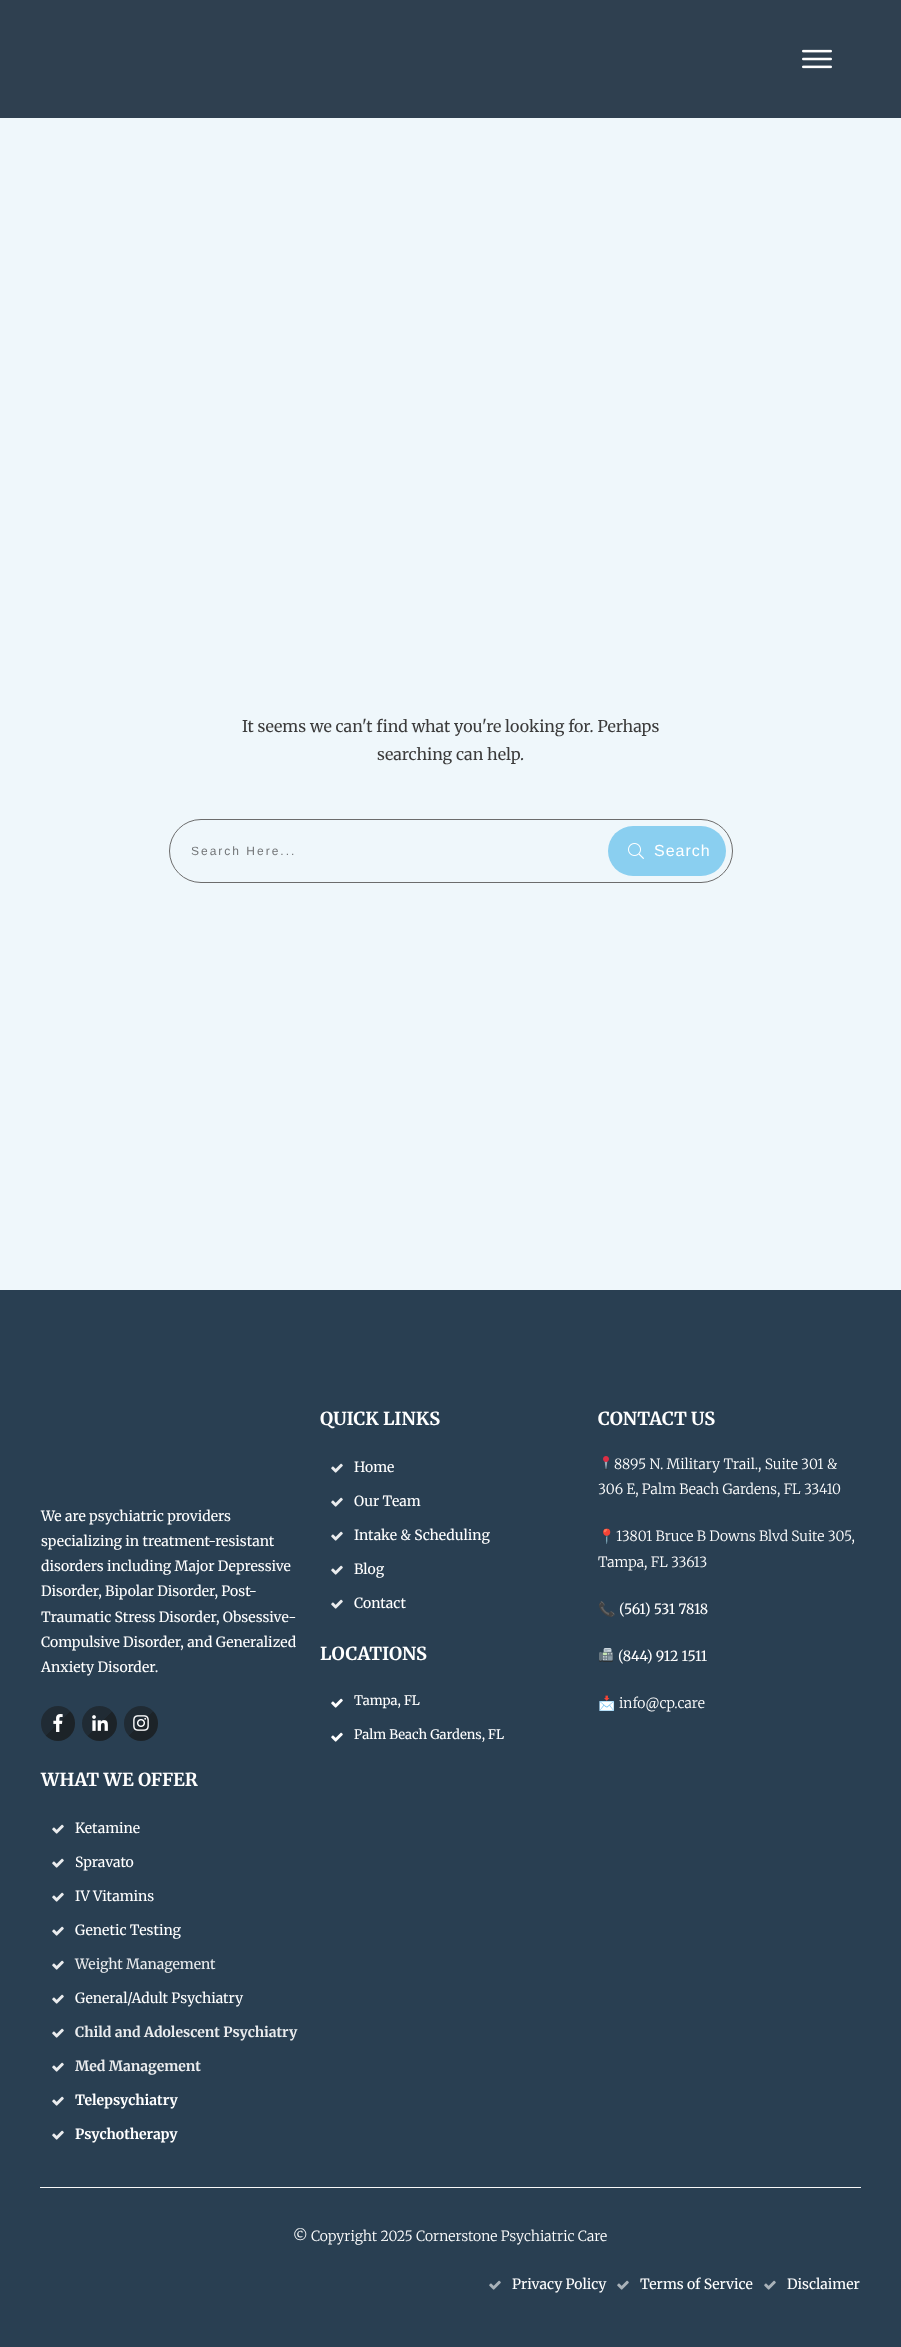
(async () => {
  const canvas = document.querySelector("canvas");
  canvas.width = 901;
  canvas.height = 2347;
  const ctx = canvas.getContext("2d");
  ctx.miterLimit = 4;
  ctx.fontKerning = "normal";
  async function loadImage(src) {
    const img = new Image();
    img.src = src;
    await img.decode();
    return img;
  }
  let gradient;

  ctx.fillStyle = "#eff7fb";
  ctx.fillRect(0, 0, 901, 2347);
  ctx.fillStyle = "#2f4050";
  ctx.fillRect(0, 0, 901, 118);
  ctx.drawImage(await loadImage("img/1.png"), 802, 49, 30, 20);
  ctx.beginPath();
  ctx.roundRect(169.5, 819.5, 563, 63, 31.5);
  ctx.strokeStyle = "#6c6c6c";
  ctx.stroke();
  ctx.fillStyle = "#8acff0";
  ctx.beginPath();
  ctx.roundRect(608, 826, 118, 50, 25);
  ctx.fill();
  ctx.drawImage(await loadImage("img/2.png"), 628, 843, 16, 16);
  ctx.fillStyle = "#293f52";
  ctx.fillRect(0, 1290, 901, 1057);
  ctx.fillStyle = "#f8f8f8";
  ctx.fillRect(40, 2187, 821, 1);
  gradient = ctx.createLinearGradient(41, 1707, 75, 1740);
  gradient.addColorStop(0.5, "#202b34");
  gradient.addColorStop(0.5, "#1c2328");
  ctx.fillStyle = gradient;
  ctx.beginPath();
  ctx.roundRect(41, 1706, 34, 35, 17);
  ctx.fill();
  ctx.drawImage(await loadImage("img/3.png"), 53, 1714, 10, 18);
  gradient = ctx.createLinearGradient(82, 1706, 117, 1741);
  gradient.addColorStop(0.5, "#202b34");
  gradient.addColorStop(0.5, "#1c2328");
  ctx.fillStyle = gradient;
  ctx.beginPath();
  ctx.arc(99.5, 1723.5, 17.5, 0, Math.PI * 2);
  ctx.fill();
  ctx.drawImage(await loadImage("img/4.png"), 92, 1715, 16, 16);
  gradient = ctx.createLinearGradient(124, 1707, 158, 1740);
  gradient.addColorStop(0.5, "#202b34");
  gradient.addColorStop(0.5, "#1c2328");
  ctx.fillStyle = gradient;
  ctx.beginPath();
  ctx.roundRect(124, 1706, 34, 35, 17);
  ctx.fill();
  ctx.drawImage(await loadImage("img/5.png"), 133, 1715, 16, 16);
  ctx.drawImage(await loadImage("img/6.png"), 331, 1463, 12, 10);
  ctx.drawImage(await loadImage("img/6.png"), 331, 1497, 12, 10);
  ctx.drawImage(await loadImage("img/6.png"), 331, 1531, 12, 10);
  ctx.drawImage(await loadImage("img/6.png"), 331, 1565, 12, 10);
  ctx.drawImage(await loadImage("img/6.png"), 331, 1599, 12, 10);
  ctx.drawImage(await loadImage("img/7.png"), 331, 1698, 12, 10);
  ctx.drawImage(await loadImage("img/7.png"), 331, 1732, 12, 10);
  ctx.drawImage(await loadImage("img/8.png"), 603, 1456, 6, 14);
  ctx.drawImage(await loadImage("img/9.png"), 599, 1648, 14, 14);
  ctx.drawImage(await loadImage("img/6.png"), 52, 1824, 12, 10);
  ctx.drawImage(await loadImage("img/6.png"), 52, 1858, 12, 10);
  ctx.drawImage(await loadImage("img/6.png"), 52, 1892, 12, 10);
  ctx.drawImage(await loadImage("img/6.png"), 52, 1926, 12, 10);
  ctx.drawImage(await loadImage("img/6.png"), 52, 1960, 12, 10);
  ctx.drawImage(await loadImage("img/6.png"), 52, 1994, 12, 10);
  ctx.drawImage(await loadImage("img/6.png"), 52, 2028, 12, 10);
  ctx.drawImage(await loadImage("img/6.png"), 52, 2062, 12, 10);
  ctx.drawImage(await loadImage("img/6.png"), 52, 2096, 12, 10);
  ctx.drawImage(await loadImage("img/6.png"), 52, 2130, 12, 10);
  ctx.drawImage(await loadImage("img/10.png"), 489, 2280, 12, 10);
  ctx.drawImage(await loadImage("img/10.png"), 617, 2280, 12, 10);
  ctx.drawImage(await loadImage("img/10.png"), 764, 2280, 12, 10);
  ctx.font = "16px Merriweather";
  ctx.fillStyle = "#3b3b3b";
  ctx.fillText("It seems we can't find what you're looking for. Perhaps", 242, 732);
  ctx.fillText("searching can help.", 377, 760);
  ctx.letterSpacing = "2px";
  ctx.font = "12px Liberation Sans";
  ctx.fillStyle = "#737678";
  ctx.fillText("Search Here...", 191, 855);
  ctx.letterSpacing = "1px";
  ctx.font = "16px Liberation Sans";
  ctx.fillStyle = "#ffffff";
  ctx.fillText("Search", 654, 856);
  ctx.letterSpacing = "0px";
  ctx.font = "14px Merriweather";
  for (const [text, x, y] of [
    ["We are psychiatric providers", 41, 1521],
    ["specializing in treatment-resistant", 41, 1546],
    ["disorders including Major Depressive", 41, 1571],
    ["Disorder, Bipolar Disorder, Post-", 41, 1596],
    ["Traumatic Stress Disorder, Obsessive-", 41, 1622],
    ["Compulsive Disorder, and Generalized", 41, 1647],
    ["Anxiety Disorder.", 41, 1672],
  ]) {
    ctx.fillText(text, x, y);
  }
  ctx.font = "bold 18px Merriweather";
  ctx.fillText("QUICK LINKS", 320, 1425);
  ctx.font = "14px Merriweather";
  for (const [text, x, y] of [
    ["Home", 354, 1472],
    ["Our Team", 354, 1506],
    ["Intake & Scheduling", 354, 1540],
    ["Blog", 354, 1574],
    ["Contact", 354, 1608],
  ]) {
    ctx.fillText(text, x, y);
  }
  ctx.font = "bold 18px Merriweather";
  ctx.fillText("LOCATIONS", 320, 1660);
  ctx.font = "13px Merriweather";
  ctx.fillText("Tampa, FL", 354, 1705);
  ctx.fillText("Palm Beach Gardens, FL", 354, 1739);
  ctx.font = "bold 18px Merriweather";
  ctx.fillText("CONTACT US", 598, 1425);
  ctx.font = "300 14px Merriweather";
  ctx.fillText("8895 N. Military Trail., Suite 301 &", 614, 1469);
  ctx.fillText("306 E, Palm Beach Gardens, FL 33410", 598, 1494);
  ctx.font = "14px Noto Color Emoji";
  ctx.fillText("📍", 598, 1541);
  ctx.font = "300 14px Merriweather";
  ctx.fillText("13801 Bruce B Downs Blvd Suite 305,", 616, 1541);
  ctx.fillText("Tampa, FL 33613", 598, 1567);
  ctx.font = "14px Noto Color Emoji";
  ctx.fillText("📞", 598, 1614);
  ctx.font = "14px Merriweather";
  ctx.fillText("(561) 531 7818", 619, 1614);
  ctx.fillText("(844) 912 1511", 618, 1661);
  ctx.font = "14px Noto Color Emoji";
  ctx.fillText("📩", 598, 1708);
  ctx.font = "300 14px Merriweather";
  ctx.fillText("info@cp.care", 619, 1708);
  ctx.font = "bold 18px Merriweather";
  ctx.fillText("WHAT WE OFFER", 41, 1786);
  ctx.font = "14px Merriweather";
  for (const [text, x, y] of [
    ["Ketamine", 75, 1833],
    ["Spravato", 75, 1867],
    ["IV Vitamins", 75, 1901],
    ["Genetic Testing", 75, 1935],
  ]) {
    ctx.fillText(text, x, y);
  }
  ctx.fillStyle = "#eaecee";
  ctx.fillText("Weight Management", 75, 1969);
  ctx.fillStyle = "#ffffff";
  ctx.fillText("General/Adult Psychiatry", 75, 2003);
  ctx.font = "bold 14px Merriweather";
  ctx.fillStyle = "#eaecee";
  ctx.fillText("Child and Adolescent Psychiatry", 75, 2037);
  ctx.fillText("Med Management", 75, 2071);
  ctx.fillStyle = "#ffffff";
  ctx.fillText("Telepsychiatry", 75, 2105);
  ctx.fillText("Psychotherapy", 75, 2139);
  ctx.font = "300 14px Merriweather";
  ctx.fillText("© Copyright 2025 Cornerstone Psychiatric Care", 293, 2241);
  ctx.font = "14px Merriweather";
  for (const [text, x, y] of [
    ["Privacy Policy", 512, 2289],
    ["Terms of Service", 640, 2289],
    ["Disclaimer", 787, 2289],
  ]) {
    ctx.fillText(text, x, y);
  }
})();
